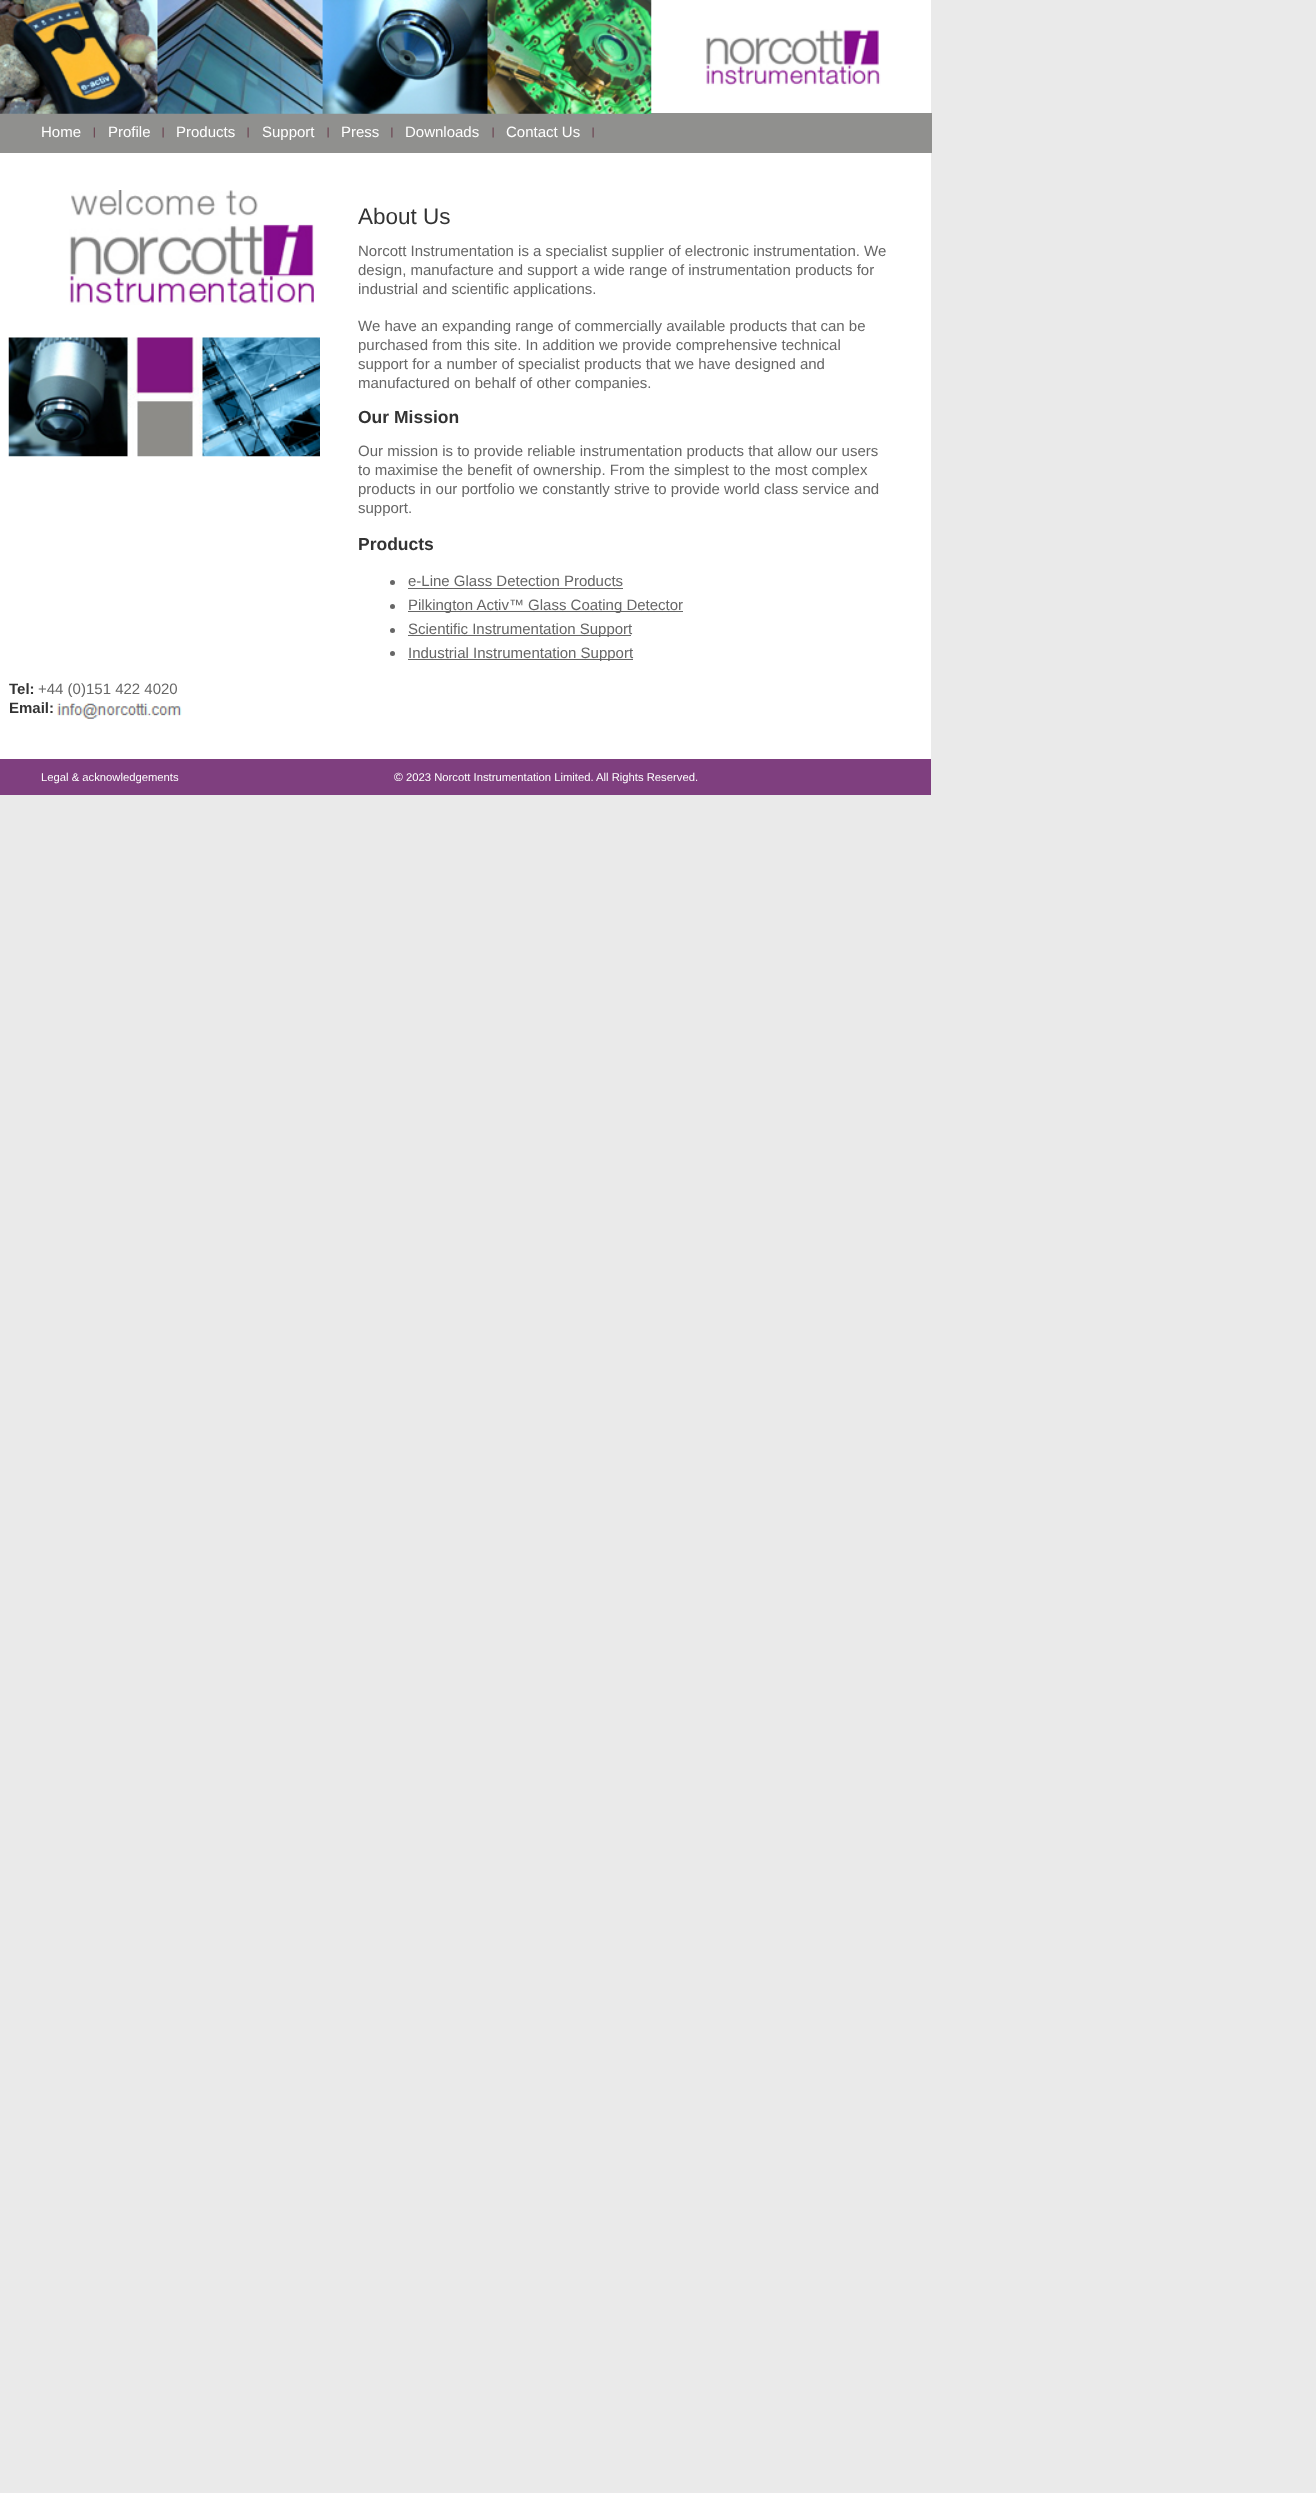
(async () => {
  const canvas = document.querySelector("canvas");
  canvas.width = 1316;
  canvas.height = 2493;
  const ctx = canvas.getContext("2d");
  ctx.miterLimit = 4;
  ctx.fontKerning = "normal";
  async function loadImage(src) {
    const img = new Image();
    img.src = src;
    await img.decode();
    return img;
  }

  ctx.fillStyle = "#eaeaea";
  ctx.fillRect(0, 0, 1316, 2493);
  ctx.fillStyle = "#ffffff";
  ctx.fillRect(0, 0, 931, 759);
  ctx.fillStyle = "#90908e";
  ctx.fillRect(0, 113, 932, 40);
  ctx.drawImage(await loadImage("img/1.png"), 0, 0, 652, 114);
  ctx.drawImage(await loadImage("img/2.png"), 706, 29, 175, 57);
  ctx.drawImage(await loadImage("img/3.png"), 93, 127, 2, 11);
  ctx.drawImage(await loadImage("img/4.png"), 162, 127, 2, 11);
  ctx.drawImage(await loadImage("img/4.png"), 247, 127, 2, 11);
  ctx.drawImage(await loadImage("img/4.png"), 327, 127, 2, 11);
  ctx.drawImage(await loadImage("img/5.png"), 391, 127, 2, 11);
  ctx.drawImage(await loadImage("img/4.png"), 492, 127, 2, 11);
  ctx.drawImage(await loadImage("img/4.png"), 592, 127, 2, 11);
  ctx.drawImage(await loadImage("img/6.png"), 8, 337, 312, 120);
  ctx.drawImage(await loadImage("img/7.png"), 71, 190, 187, 26);
  ctx.drawImage(await loadImage("img/8.png"), 69, 224, 246, 81);
  ctx.fillStyle = "#666666";
  ctx.beginPath();
  ctx.arc(392.5, 582.5, 2.5, 0, Math.PI * 2);
  ctx.fill();
  ctx.fillRect(408, 588, 215, 1);
  ctx.beginPath();
  ctx.arc(392.5, 606.5, 2.5, 0, Math.PI * 2);
  ctx.fill();
  ctx.fillRect(408, 611, 275, 1);
  ctx.beginPath();
  ctx.arc(392.5, 630.5, 2.5, 0, Math.PI * 2);
  ctx.fill();
  ctx.fillRect(408, 635, 223, 1);
  ctx.beginPath();
  ctx.arc(392.5, 653.5, 2.5, 0, Math.PI * 2);
  ctx.fill();
  ctx.fillRect(408, 659, 225, 1);
  ctx.drawImage(await loadImage("img/9.png"), 57, 703, 125, 16);
  ctx.fillStyle = "#7f3f7f";
  ctx.fillRect(0, 759, 931, 36);
  ctx.font = "15px Liberation Sans";
  ctx.fillStyle = "#ffffff";
  for (const [text, x, y] of [
    ["Home", 41, 137],
    ["Profile", 108, 137],
    ["Products", 176, 137],
    ["Support", 262, 137],
    ["Press", 341, 137],
    ["Downloads", 405, 137],
    ["Contact Us", 506, 137],
  ]) {
    ctx.fillText(text, x, y);
  }
  ctx.font = "22.5px Liberation Sans";
  ctx.fillStyle = "#333333";
  ctx.fillText("About Us", 358, 224);
  ctx.font = "15px Liberation Sans";
  ctx.fillStyle = "#666666";
  for (const [text, x, y] of [
    ["Norcott Instrumentation is a specialist supplier of electronic instrumentation. We", 358, 256],
    ["design, manufacture and support a wide range of instrumentation products for", 358, 275],
    ["industrial and scientific applications.", 358, 294],
    ["We have an expanding range of commercially available products that can be", 358, 331],
    ["purchased from this site. In addition we provide comprehensive technical", 358, 350],
    ["support for a number of specialist products that we have designed and", 358, 369],
    ["manufactured on behalf of other companies.", 358, 388],
  ]) {
    ctx.fillText(text, x, y);
  }
  ctx.font = "bold 17.5px Liberation Sans";
  ctx.fillStyle = "#333333";
  ctx.fillText("Our Mission", 358, 423);
  ctx.font = "15px Liberation Sans";
  ctx.fillStyle = "#666666";
  for (const [text, x, y] of [
    ["Our mission is to provide reliable instrumentation products that allow our users", 358, 456],
    ["to maximise the benefit of ownership. From the simplest to the most complex", 358, 475],
    ["products in our portfolio we constantly strive to provide world class service and", 358, 494],
    ["support.", 358, 513],
  ]) {
    ctx.fillText(text, x, y);
  }
  ctx.font = "bold 17.5px Liberation Sans";
  ctx.fillStyle = "#333333";
  ctx.fillText("Products", 358, 550);
  ctx.font = "15px Liberation Sans";
  ctx.fillStyle = "#666666";
  for (const [text, x, y] of [
    ["e-Line Glass Detection Products", 408, 586],
    ["Pilkington Activ™ Glass Coating Detector", 408, 610],
    ["Scientific Instrumentation Support", 408, 634],
    ["Industrial Instrumentation Support", 408, 658],
  ]) {
    ctx.fillText(text, x, y);
  }
  ctx.font = "bold 15px Liberation Sans";
  ctx.fillStyle = "#333333";
  ctx.fillText("Tel:", 9, 694);
  ctx.font = "15px Liberation Sans";
  ctx.fillStyle = "#666666";
  ctx.fillText("+44 (0)151 422 4020", 38, 694);
  ctx.font = "bold 15px Liberation Sans";
  ctx.fillStyle = "#333333";
  ctx.fillText("Email:", 9, 713);
  ctx.font = "11.25px Liberation Sans";
  ctx.fillStyle = "#ffffff";
  ctx.fillText("Legal & acknowledgements", 41, 781);
  ctx.font = "12px Liberation Sans";
  ctx.fillText("©", 394, 781);
  ctx.font = "11.25px Liberation Sans";
  ctx.fillText("2023 Norcott Instrumentation Limited. All Rights Reserved.", 406, 781);
})();
